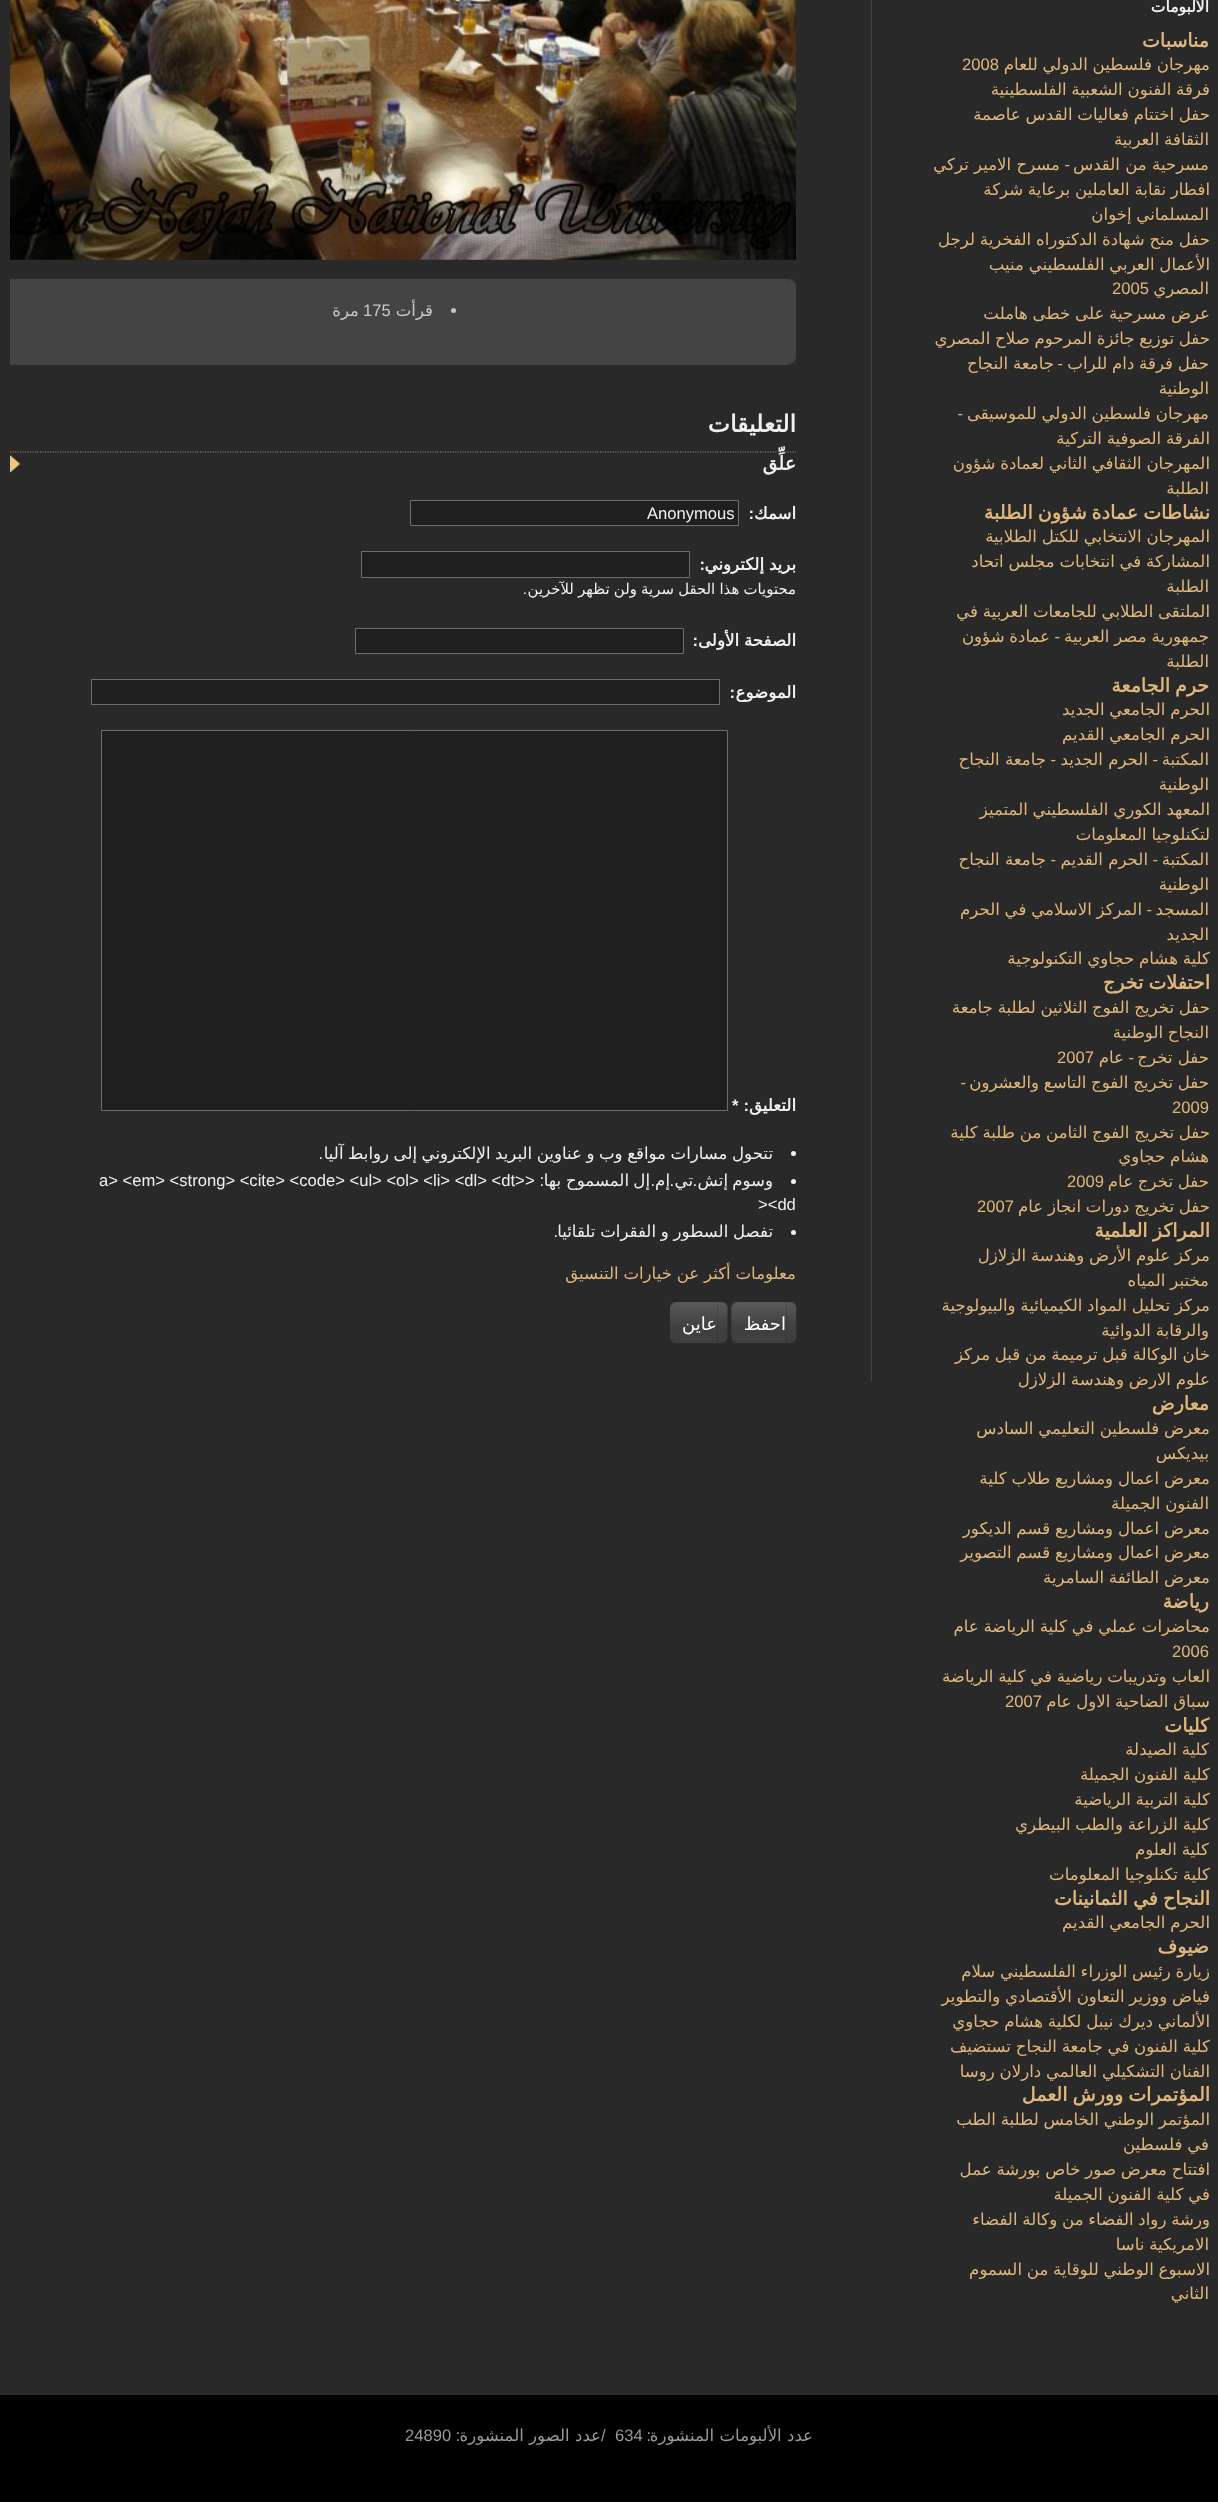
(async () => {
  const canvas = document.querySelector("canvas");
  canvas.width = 1218;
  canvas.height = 2502;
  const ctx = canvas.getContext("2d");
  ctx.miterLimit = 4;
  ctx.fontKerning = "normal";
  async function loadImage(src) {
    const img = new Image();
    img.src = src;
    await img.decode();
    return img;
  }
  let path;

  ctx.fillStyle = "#292929";
  ctx.fillRect(0, 0, 1218, 2502);
  ctx.fillStyle = "#444444";
  ctx.fillRect(871, 0, 1, 1381);
  ctx.drawImage(await loadImage("img/1.png"), 10, 0, 786, 260);
  ctx.fillRect(10, 279, 786, 86);
  ctx.drawImage(await loadImage("img/2.png"), 788, 278, 9, 7);
  ctx.drawImage(await loadImage("img/3.png"), 788, 278, 8, 8);
  ctx.fillStyle = "#c6c6c6";
  ctx.beginPath();
  ctx.arc(453.5, 310.5, 2.5, 0, Math.PI * 2);
  ctx.fill();
  ctx.drawImage(await loadImage("img/4.png"), 788, 358, 7, 7);
  ctx.drawImage(await loadImage("img/5.png"), 788, 358, 8, 7);
  path = new Path2D("M10 452H796");
  ctx.strokeStyle = "#98846c";
  ctx.lineWidth = 1.2;
  ctx.setLineDash([1.25, 1.25]);
  ctx.stroke(path);
  ctx.drawImage(await loadImage("img/6.png"), 10, 455, 10, 18);
  ctx.fillStyle = "#1f1f1f";
  ctx.beginPath();
  ctx.rect(410.5, 500.5, 328, 25);
  ctx.fill();
  ctx.strokeStyle = "#6d6d6d";
  ctx.lineWidth = 1;
  ctx.setLineDash([]);
  ctx.stroke();
  ctx.beginPath();
  ctx.rect(361.5, 551.5, 328, 26);
  ctx.fill();
  ctx.stroke();
  ctx.beginPath();
  ctx.rect(355.5, 628.5, 328, 25);
  ctx.fill();
  ctx.stroke();
  ctx.beginPath();
  ctx.rect(91.5, 679.5, 628, 25);
  ctx.fill();
  ctx.stroke();
  ctx.beginPath();
  ctx.rect(101.5, 730.5, 626, 380);
  ctx.fill();
  ctx.stroke();
  ctx.fillStyle = "#f0f0f0";
  ctx.beginPath();
  ctx.arc(793.5, 1153.5, 2.5, 0, Math.PI * 2);
  ctx.fill();
  ctx.beginPath();
  ctx.arc(793.5, 1181.5, 2.5, 0, Math.PI * 2);
  ctx.fill();
  ctx.beginPath();
  ctx.arc(793.5, 1232.5, 2.5, 0, Math.PI * 2);
  ctx.fill();
  ctx.drawImage(await loadImage("img/7.png"), 786, 1302, 11, 42);
  ctx.drawImage(await loadImage("img/8.png"), 731, 1302, 55, 42);
  ctx.drawImage(await loadImage("img/9.png"), 717, 1302, 11, 42);
  ctx.drawImage(await loadImage("img/10.png"), 670, 1302, 48, 42);
  ctx.fillStyle = "#000000";
  ctx.fillRect(0, 2395, 1218, 107);
  ctx.direction = "rtl";
  ctx.font = "bold 15.5px DejaVu Sans";
  ctx.fillStyle = "#f0f0f0";
  ctx.fillText("الألبومات", 1209, 12);
  ctx.font = "bold 19px DejaVu Sans";
  ctx.fillStyle = "#dfb77c";
  ctx.fillText("مناسبات", 1209, 47);
  ctx.wordSpacing = "-0.5px";
  ctx.font = "16.6px DejaVu Sans";
  ctx.fillText("مهرجان فلسطين الدولي للعام", 1210, 70);
  ctx.wordSpacing = "0px";
  ctx.direction = "ltr";
  ctx.font = "16.6px Liberation Sans";
  ctx.fillText("2008", 962, 70);
  ctx.wordSpacing = "-0.5px";
  ctx.direction = "rtl";
  ctx.font = "16.6px DejaVu Sans";
  for (const [text, x, y] of [
    ["فرقة الفنون الشعبية الفلسطينية", 1210, 95],
    ["حفل اختتام فعاليات القدس عاصمة", 1210, 120],
    ["الثقافة العربية", 1209, 145],
  ]) {
    ctx.fillText(text, x, y);
  }
  ctx.wordSpacing = "0px";
  ctx.fillText("مسرحية من القدس", 1209, 170);
  ctx.font = "16.6px Liberation Sans";
  ctx.fillText("-", 1070, 170);
  ctx.font = "16.6px DejaVu Sans";
  ctx.fillText("مسرح الامير تركي", 1060, 170);
  ctx.wordSpacing = "-0.5px";
  for (const [text, x, y] of [
    ["افطار نقابة العاملين برعاية شركة", 1210, 195],
    ["المسلماني إخوان", 1209, 220],
    ["حفل منح شهادة الدكتوراه الفخرية لرجل", 1210, 245],
    ["الأعمال العربي الفلسطيني منيب", 1210, 270],
  ]) {
    ctx.fillText(text, x, y);
  }
  ctx.wordSpacing = "0px";
  ctx.fillText("المصري", 1209, 294);
  ctx.direction = "ltr";
  ctx.font = "16.6px Liberation Sans";
  ctx.fillText("2005", 1112, 294);
  ctx.wordSpacing = "-0.5px";
  ctx.direction = "rtl";
  ctx.font = "16.6px DejaVu Sans";
  for (const [text, x, y] of [
    ["عرض مسرحية على خطى هاملت", 1210, 319],
    ["حفل توزيع جائزة المرحوم صلاح المصري", 1210, 344],
    ["حفل فرقة دام للراب", 1209, 369],
  ]) {
    ctx.fillText(text, x, y);
  }
  ctx.wordSpacing = "0px";
  ctx.font = "16.6px Liberation Sans";
  ctx.fillText("-", 1063, 369);
  ctx.wordSpacing = "-0.5px";
  ctx.font = "16.6px DejaVu Sans";
  ctx.fillText("جامعة النجاح", 1054, 369);
  ctx.wordSpacing = "0px";
  ctx.fillText("الوطنية", 1209, 394);
  ctx.wordSpacing = "-0.5px";
  ctx.fillText("مهرجان فلسطين الدولي للموسيقى", 1209, 419);
  ctx.wordSpacing = "0px";
  ctx.font = "16.6px Liberation Sans";
  ctx.fillText("-", 963, 419);
  ctx.wordSpacing = "-0.5px";
  ctx.font = "16.6px DejaVu Sans";
  ctx.fillText("الفرقة الصوفية التركية", 1210, 444);
  ctx.fillText("المهرجان الثقافي الثاني لعمادة شؤون", 1210, 469);
  ctx.wordSpacing = "0px";
  ctx.fillText("الطلبة", 1209, 494);
  ctx.wordSpacing = "-1px";
  ctx.font = "bold 19px DejaVu Sans";
  ctx.fillText("نشاطات عمادة شؤون الطلبة", 1210, 519);
  ctx.wordSpacing = "-0.5px";
  ctx.font = "16.6px DejaVu Sans";
  ctx.fillText("المهرجان الانتخابي للكتل الطلابية", 1210, 542);
  ctx.fillText("المشاركة في انتخابات مجلس اتحاد", 1210, 567);
  ctx.wordSpacing = "0px";
  ctx.fillText("الطلبة", 1209, 592);
  ctx.wordSpacing = "-0.5px";
  ctx.fillText("الملتقى الطلابي للجامعات العربية في", 1210, 617);
  ctx.fillText("جمهورية مصر العربية", 1209, 642);
  ctx.wordSpacing = "0px";
  ctx.font = "16.6px Liberation Sans";
  ctx.fillText("-", 1060, 642);
  ctx.wordSpacing = "-0.5px";
  ctx.font = "16.6px DejaVu Sans";
  ctx.fillText("عمادة شؤون", 1050, 642);
  ctx.wordSpacing = "0px";
  ctx.fillText("الطلبة", 1209, 667);
  ctx.wordSpacing = "-1px";
  ctx.font = "bold 19px DejaVu Sans";
  ctx.fillText("حرم الجامعة", 1209, 692);
  ctx.wordSpacing = "-0.5px";
  ctx.font = "16.6px DejaVu Sans";
  ctx.fillText("الحرم الجامعي الجديد", 1210, 715);
  ctx.fillText("الحرم الجامعي القديم", 1210, 740);
  ctx.wordSpacing = "0px";
  ctx.fillText("المكتبة", 1209, 765);
  ctx.font = "16.6px Liberation Sans";
  ctx.fillText("-", 1158, 765);
  ctx.font = "16.6px DejaVu Sans";
  ctx.fillText("الحرم الجديد", 1148, 765);
  ctx.font = "16.6px Liberation Sans";
  ctx.fillText("-", 1056, 765);
  ctx.font = "16.6px DejaVu Sans";
  ctx.fillText("جامعة النجاح", 1046, 765);
  ctx.fillText("الوطنية", 1209, 790);
  ctx.wordSpacing = "-0.5px";
  ctx.fillText("المعهد الكوري الفلسطيني المتميز", 1210, 815);
  ctx.fillText("لتكنلوجيا المعلومات", 1210, 840);
  ctx.wordSpacing = "0px";
  ctx.fillText("المكتبة", 1209, 865);
  ctx.font = "16.6px Liberation Sans";
  ctx.fillText("-", 1158, 865);
  ctx.font = "16.6px DejaVu Sans";
  ctx.fillText("الحرم القديم", 1148, 865);
  ctx.font = "16.6px Liberation Sans";
  ctx.fillText("-", 1056, 865);
  ctx.font = "16.6px DejaVu Sans";
  for (const [text, x, y] of [
    ["جامعة النجاح", 1046, 865],
    ["الوطنية", 1209, 890],
    ["المسجد", 1209, 915],
  ]) {
    ctx.fillText(text, x, y);
  }
  ctx.font = "16.6px Liberation Sans";
  ctx.fillText("-", 1152, 915);
  ctx.wordSpacing = "-0.5px";
  ctx.font = "16.6px DejaVu Sans";
  ctx.fillText("المركز الاسلامي في الحرم", 1142, 915);
  ctx.wordSpacing = "0px";
  ctx.fillText("الجديد", 1209, 940);
  ctx.wordSpacing = "-0.5px";
  ctx.fillText("كلية هشام حجاوي التكنولوجية", 1210, 964);
  ctx.wordSpacing = "-1px";
  ctx.font = "bold 19px DejaVu Sans";
  ctx.fillText("احتفلات تخرج", 1210, 989);
  ctx.wordSpacing = "-0.5px";
  ctx.font = "16.6px DejaVu Sans";
  ctx.fillText("حفل تخريج الفوج الثلاثين لطلبة جامعة", 1210, 1013);
  ctx.fillText("النجاح الوطنية", 1209, 1038);
  ctx.wordSpacing = "0px";
  ctx.fillText("حفل تخرج", 1209, 1063);
  ctx.font = "16.6px Liberation Sans";
  ctx.fillText("-", 1134, 1063);
  ctx.font = "16.6px DejaVu Sans";
  ctx.fillText("عام", 1124, 1063);
  ctx.direction = "ltr";
  ctx.font = "16.6px Liberation Sans";
  ctx.fillText("2007", 1057, 1063);
  ctx.wordSpacing = "-0.5px";
  ctx.direction = "rtl";
  ctx.font = "16.6px DejaVu Sans";
  ctx.fillText("حفل تخريج الفوج التاسع والعشرون", 1209, 1088);
  ctx.wordSpacing = "0px";
  ctx.font = "16.6px Liberation Sans";
  ctx.fillText("-", 966, 1088);
  ctx.direction = "ltr";
  ctx.fillText("2009", 1172, 1113);
  ctx.wordSpacing = "-0.5px";
  ctx.direction = "rtl";
  ctx.font = "16.6px DejaVu Sans";
  for (const [text, x, y] of [
    ["حفل تخريج الفوج الثامن من طلبة كلية", 1210, 1138],
    ["هشام حجاوي", 1209, 1162],
    ["حفل تخرج عام", 1209, 1187],
  ]) {
    ctx.fillText(text, x, y);
  }
  ctx.wordSpacing = "0px";
  ctx.direction = "ltr";
  ctx.font = "16.6px Liberation Sans";
  ctx.fillText("2009", 1067, 1187);
  ctx.wordSpacing = "-0.5px";
  ctx.direction = "rtl";
  ctx.font = "16.6px DejaVu Sans";
  ctx.fillText("حفل تخريج دورات انجاز عام", 1210, 1212);
  ctx.wordSpacing = "0px";
  ctx.direction = "ltr";
  ctx.font = "16.6px Liberation Sans";
  ctx.fillText("2007", 977, 1212);
  ctx.wordSpacing = "-1px";
  ctx.direction = "rtl";
  ctx.font = "bold 19px DejaVu Sans";
  ctx.fillText("المراكز العلمية", 1210, 1237);
  ctx.wordSpacing = "-0.5px";
  ctx.font = "16.6px DejaVu Sans";
  for (const [text, x, y] of [
    ["مركز علوم الأرض وهندسة الزلازل", 1210, 1261],
    ["مختبر المياه", 1209, 1286],
    ["مركز تحليل المواد الكيميائية والبيولوجية", 1210, 1311],
    ["والرقابة الدوائية", 1209, 1336],
    ["خان الوكالة قبل ترميمة من قبل مركز", 1210, 1360],
    ["علوم الارض وهندسة الزلازل", 1210, 1385],
  ]) {
    ctx.fillText(text, x, y);
  }
  ctx.wordSpacing = "0px";
  ctx.font = "bold 19px DejaVu Sans";
  ctx.fillText("معارض", 1209, 1410);
  ctx.wordSpacing = "-0.5px";
  ctx.font = "16.6px DejaVu Sans";
  ctx.fillText("معرض فلسطين التعليمي السادس", 1210, 1434);
  ctx.wordSpacing = "0px";
  ctx.fillText("بيديكس", 1209, 1459);
  ctx.wordSpacing = "-0.5px";
  for (const [text, x, y] of [
    ["معرض اعمال ومشاريع طلاب كلية", 1210, 1484],
    ["الفنون الجميلة", 1209, 1509],
    ["معرض اعمال ومشاريع قسم الديكور", 1210, 1534],
    ["معرض اعمال ومشاريع قسم التصوير", 1210, 1558],
    ["معرض الطائفة السامرية", 1210, 1583],
  ]) {
    ctx.fillText(text, x, y);
  }
  ctx.wordSpacing = "0px";
  ctx.font = "bold 19px DejaVu Sans";
  ctx.fillText("رياضة", 1209, 1608);
  ctx.wordSpacing = "-0.5px";
  ctx.font = "16.6px DejaVu Sans";
  ctx.fillText("محاضرات عملي في كلية الرياضة عام", 1210, 1632);
  ctx.wordSpacing = "0px";
  ctx.direction = "ltr";
  ctx.font = "16.6px Liberation Sans";
  ctx.fillText("2006", 1172, 1657);
  ctx.wordSpacing = "-0.5px";
  ctx.direction = "rtl";
  ctx.font = "16.6px DejaVu Sans";
  ctx.fillText("العاب وتدريبات رياضية في كلية الرياضة", 1210, 1682);
  ctx.fillText("سباق الضاحية الاول عام", 1210, 1707);
  ctx.wordSpacing = "0px";
  ctx.direction = "ltr";
  ctx.font = "16.6px Liberation Sans";
  ctx.fillText("2007", 1005, 1707);
  ctx.direction = "rtl";
  ctx.font = "bold 19px DejaVu Sans";
  ctx.fillText("كليات", 1209, 1732);
  ctx.wordSpacing = "-0.5px";
  ctx.font = "16.6px DejaVu Sans";
  for (const [text, x, y] of [
    ["كلية الصيدلة", 1209, 1755],
    ["كلية الفنون الجميلة", 1210, 1780],
    ["كلية التربية الرياضية", 1210, 1805],
    ["كلية الزراعة والطب البيطري", 1210, 1830],
    ["كلية العلوم", 1209, 1855],
    ["كلية تكنلوجيا المعلومات", 1210, 1880],
  ]) {
    ctx.fillText(text, x, y);
  }
  ctx.wordSpacing = "-1px";
  ctx.font = "bold 19px DejaVu Sans";
  ctx.fillText("النجاح في الثمانينات", 1210, 1905);
  ctx.wordSpacing = "-0.5px";
  ctx.font = "16.6px DejaVu Sans";
  ctx.fillText("الحرم الجامعي القديم", 1210, 1928);
  ctx.wordSpacing = "0px";
  ctx.font = "bold 19px DejaVu Sans";
  ctx.fillText("ضيوف", 1209, 1953);
  ctx.wordSpacing = "-0.5px";
  ctx.font = "16.6px DejaVu Sans";
  for (const [text, x, y] of [
    ["زيارة رئيس الوزراء الفلسطيني سلام", 1210, 1977],
    ["فياض ووزير التعاون الأقتصادي والتطوير", 1210, 2002],
    ["الألماني ديرك نيبل لكلية هشام حجاوي", 1210, 2027],
    ["كلية الفنون في جامعة النجاح تستضيف", 1210, 2052],
    ["الفنان التشكيلي العالمي دارلان روسا", 1210, 2077],
  ]) {
    ctx.fillText(text, x, y);
  }
  ctx.wordSpacing = "-1px";
  ctx.font = "bold 19px DejaVu Sans";
  ctx.fillText("المؤتمرات وورش العمل", 1210, 2101);
  ctx.wordSpacing = "-0.5px";
  ctx.font = "16.6px DejaVu Sans";
  for (const [text, x, y] of [
    ["المؤتمر الوطني الخامس لطلبة الطب", 1210, 2125],
    ["في فلسطين", 1209, 2150],
    ["افتتاح معرض صور خاص بورشة عمل", 1210, 2175],
    ["في كلية الفنون الجميلة", 1210, 2200],
    ["ورشة رواد الفضاء من وكالة الفضاء", 1210, 2225],
    ["الامريكية ناسا", 1209, 2250],
    ["الاسبوع الوطني للوقاية من السموم", 1210, 2275],
  ]) {
    ctx.fillText(text, x, y);
  }
  ctx.wordSpacing = "0px";
  ctx.fillText("الثاني", 1209, 2299);
  ctx.fillStyle = "#c6c6c6";
  ctx.fillText("قرأت", 433, 316);
  ctx.direction = "ltr";
  ctx.font = "16.6px Liberation Sans";
  ctx.fillText("175", 363, 316);
  ctx.direction = "rtl";
  ctx.font = "16.6px DejaVu Sans";
  ctx.fillText("مرة", 359, 316);
  ctx.font = "bold 23.5px DejaVu Sans";
  ctx.fillStyle = "#f0f0f0";
  ctx.fillText("التعليقات", 796, 432);
  ctx.font = "bold 19px DejaVu Sans";
  ctx.fillText("علِّق", 796, 470);
  ctx.font = "bold 16.6px DejaVu Sans";
  ctx.fillText("اسمك", 796, 519);
  ctx.font = "bold 16.6px Liberation Sans";
  ctx.fillText(": ", 754, 519);
  ctx.direction = "ltr";
  ctx.font = "16.6px Liberation Sans";
  ctx.fillText("Anonymous", 647, 519);
  ctx.direction = "rtl";
  ctx.font = "bold 16.6px DejaVu Sans";
  ctx.fillText("بريد", 796, 570);
  ctx.fillText("إلكتروني", 764, 570);
  ctx.font = "bold 16.6px Liberation Sans";
  ctx.fillText(": ", 705, 570);
  ctx.wordSpacing = "-0.5px";
  ctx.font = "14.9px DejaVu Sans";
  ctx.fillText("محتويات هذا الحقل سرية ولن تظهر للآخرين", 796, 594);
  ctx.wordSpacing = "0px";
  ctx.font = "14.9px Liberation Sans";
  ctx.fillText(".", 527, 594);
  ctx.font = "bold 16.6px DejaVu Sans";
  ctx.fillText("الصفحة", 796, 646);
  ctx.fillText("الأولى", 739, 646);
  ctx.font = "bold 16.6px Liberation Sans";
  ctx.fillText(": ", 698, 646);
  ctx.font = "bold 16.6px DejaVu Sans";
  ctx.fillText("الموضوع", 796, 698);
  ctx.font = "bold 16.6px Liberation Sans";
  ctx.fillText(": ", 735, 698);
  ctx.font = "bold 16.6px DejaVu Sans";
  ctx.fillText("التعليق", 796, 1111);
  ctx.font = "bold 16.6px Liberation Sans";
  ctx.fillText(": ", 749, 1111);
  ctx.direction = "ltr";
  ctx.fillText("*", 732, 1111);
  ctx.wordSpacing = "-0.75px";
  ctx.direction = "rtl";
  ctx.font = "16.6px DejaVu Sans";
  ctx.fillText("تتحول مسارات مواقع وب و عناوين البريد الإلكتروني إلى روابط آليا", 773, 1159);
  ctx.wordSpacing = "0px";
  ctx.font = "16.6px Liberation Sans";
  ctx.fillText(".", 323, 1159);
  ctx.font = "16.6px DejaVu Sans";
  for (const [text, x, y] of [
    ["وسوم", 773, 1186],
    ["إتش", 728, 1186],
    ["تي", 693, 1186],
    ["إم", 670, 1186],
    ["إل", 650, 1186],
    ["المسموح", 629, 1186],
    ["بها", 561, 1186],
  ]) {
    ctx.fillText(text, x, y);
  }
  ctx.font = "16.6px Liberation Sans";
  ctx.fillText(": <", 544, 1186);
  ctx.direction = "ltr";
  ctx.fillText("a> <em> <strong> <cite> <code> <ul> <ol> <li> <dl> <dt>", 99, 1186);
  ctx.direction = "rtl";
  for (const [text, x, y] of [
    [".", 697, 1186],
    [".", 674, 1186],
    [".", 655, 1186],
  ]) {
    ctx.fillText(text, x, y);
  }
  ctx.direction = "ltr";
  ctx.fillText("><dd", 758, 1210);
  ctx.wordSpacing = "-0.5px";
  ctx.direction = "rtl";
  ctx.font = "16.6px DejaVu Sans";
  ctx.fillText("تفصل السطور و الفقرات تلقائيا", 773, 1237);
  ctx.wordSpacing = "0px";
  ctx.font = "16.6px Liberation Sans";
  ctx.fillText(".", 558, 1237);
  ctx.wordSpacing = "-0.5px";
  ctx.font = "16.6px DejaVu Sans";
  ctx.fillStyle = "#dfb77c";
  ctx.fillText("معلومات أكثر عن خيارات التنسيق", 796, 1279);
  ctx.wordSpacing = "0px";
  ctx.font = "18px DejaVu Sans";
  ctx.fillStyle = "#ffffff";
  ctx.fillText("احفظ", 786, 1330);
  ctx.fillText("عاين", 717, 1330);
  ctx.font = "16.6px DejaVu Sans";
  ctx.fillStyle = "#999999";
  ctx.fillText("عدد الألبومات المنشورة", 813, 2441);
  ctx.font = "16.6px Liberation Sans";
  ctx.fillText(":", 651, 2441);
  ctx.direction = "ltr";
  ctx.fillText("634", 615, 2441);
  ctx.fillText("/", 601, 2441);
  ctx.direction = "rtl";
  ctx.font = "16.6px DejaVu Sans";
  ctx.fillText("عدد الصور المنشورة", 601, 2441);
  ctx.font = "16.6px Liberation Sans";
  ctx.fillText(":", 460, 2441);
  ctx.direction = "ltr";
  ctx.fillText("24890", 405, 2441);
})();
